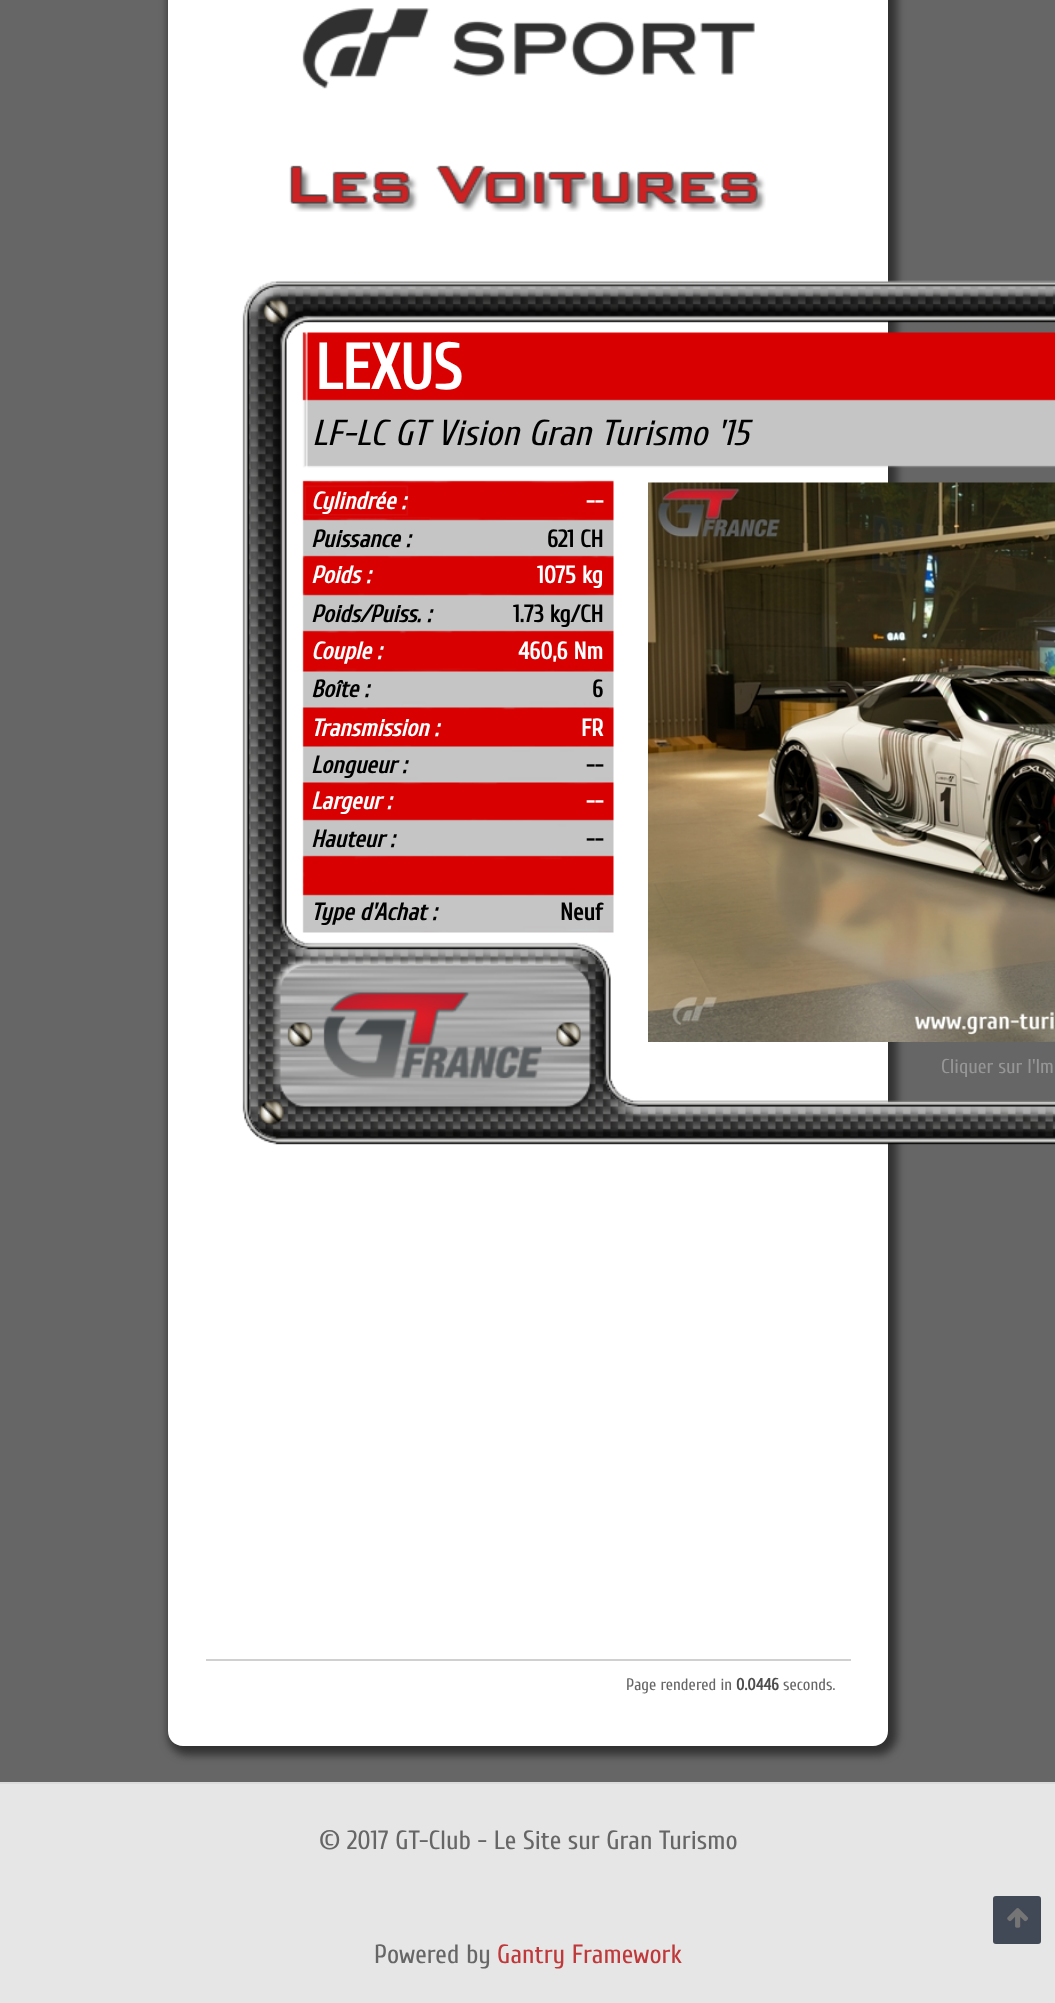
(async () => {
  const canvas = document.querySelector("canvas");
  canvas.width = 1055;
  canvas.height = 2003;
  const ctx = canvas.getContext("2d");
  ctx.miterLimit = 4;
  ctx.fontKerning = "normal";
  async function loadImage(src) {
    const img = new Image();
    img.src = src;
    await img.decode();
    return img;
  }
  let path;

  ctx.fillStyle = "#666666";
  ctx.fillRect(0, 0, 1055, 2003);
  ctx.fillStyle = "#313131";
  ctx.filter = "blur(4px)";
  ctx.beginPath();
  ctx.roundRect(168, -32, 729, 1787, 20);
  ctx.fill();
  ctx.filter = "none";
  ctx.fillStyle = "#ffffff";
  path = new Path2D("M168-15H888V1731C888 1739.5 881.5 1746 873 1746H183C174.5 1746 168 1739.5 168 1731Z");
  ctx.fill(path);
  ctx.drawImage(await loadImage("img/1.png"), 302, 8, 453, 81);
  ctx.drawImage(await loadImage("img/2.png"), 289, 165, 477, 47);
  ctx.drawImage(await loadImage("img/3.png"), 242, 280, 813, 865);
  ctx.drawImage(await loadImage("img/4.png"), 648, 482, 407, 560);
  for (const [x, y, w, h, color] of [
    [206, 1659, 645, 2, "#d0d0d0"],
    [0, 1784, 1055, 219, "#e6e6e6"],
    [0, 1782, 1055, 2, "#dbdbdb"],
  ]) {
    ctx.fillStyle = color;
    ctx.fillRect(x, y, w, h);
  }
  ctx.fillStyle = "#414856";
  ctx.beginPath();
  ctx.roundRect(993, 1896, 48, 48, 3);
  ctx.fill();
  ctx.drawImage(await loadImage("img/5.png"), 1007, 1908, 21, 20);
  ctx.font = "bold 64px Cuprum";
  ctx.fillStyle = "#ffffff";
  ctx.fillText("LEXUS", 315, 389);
  ctx.font = "italic 36px Cuprum";
  ctx.fillStyle = "#000000";
  ctx.fillText("LF-LC GT Vision Gran Turismo '15", 312, 445);
  ctx.font = "italic bold 24px Cuprum";
  ctx.fillStyle = "#ffffff";
  ctx.fillText("Cylindrée :", 311, 509);
  ctx.font = "bold 24px Cuprum";
  ctx.fillText("--", 586, 509);
  ctx.font = "italic bold 24px Cuprum";
  ctx.fillStyle = "#000000";
  ctx.fillText("Puissance :", 311, 547);
  ctx.font = "bold 24px Cuprum";
  ctx.fillText("621 CH", 547, 547);
  ctx.font = "italic bold 24px Cuprum";
  ctx.fillStyle = "#ffffff";
  ctx.fillText("Poids :", 311, 583);
  ctx.font = "bold 24px Cuprum";
  ctx.fillText("1075 kg", 537, 583);
  ctx.font = "italic bold 24px Cuprum";
  ctx.fillStyle = "#000000";
  ctx.fillText("Poids/Puiss. :", 311, 622);
  ctx.font = "bold 24px Cuprum";
  ctx.fillText("1.73 kg/CH", 513, 622);
  ctx.font = "italic bold 24px Cuprum";
  ctx.fillStyle = "#ffffff";
  ctx.fillText("Couple :", 311, 659);
  ctx.font = "bold 24px Cuprum";
  ctx.fillText("460,6 Nm", 518, 659);
  ctx.font = "italic bold 24px Cuprum";
  ctx.fillStyle = "#000000";
  ctx.fillText("Boîte :", 311, 697);
  ctx.font = "bold 24px Cuprum";
  ctx.fillText("6", 592, 697);
  ctx.font = "italic bold 24px Cuprum";
  ctx.fillStyle = "#ffffff";
  ctx.fillText("Transmission :", 311, 736);
  ctx.font = "bold 24px Cuprum";
  ctx.fillText("FR", 581, 736);
  ctx.font = "italic bold 24px Cuprum";
  ctx.fillStyle = "#000000";
  ctx.fillText("Longueur :", 311, 773);
  ctx.font = "bold 24px Cuprum";
  ctx.fillText("--", 586, 773);
  ctx.font = "italic bold 24px Cuprum";
  ctx.fillStyle = "#ffffff";
  ctx.fillText("Largeur :", 311, 809);
  ctx.font = "bold 24px Cuprum";
  ctx.fillText("--", 586, 809);
  ctx.font = "italic bold 24px Cuprum";
  ctx.fillStyle = "#000000";
  ctx.fillText("Hauteur :", 311, 847);
  ctx.font = "bold 24px Cuprum";
  ctx.fillText("--", 586, 847);
  ctx.font = "italic bold 24px Cuprum";
  ctx.fillText("Type d'Achat :", 311, 920);
  ctx.font = "bold 24px Cuprum";
  ctx.fillText("Neuf", 560, 920);
  ctx.font = "20px Cuprum";
  ctx.fillStyle = "#969696";
  ctx.fillText("Cliquer sur l'Im", 941, 1073);
  ctx.font = "16.5px Cuprum";
  ctx.fillStyle = "#666666";
  ctx.fillText("Page rendered in", 626, 1690);
  ctx.font = "bold 16.5px Cuprum";
  ctx.fillStyle = "#4d4d4d";
  ctx.fillText("0.0446", 736, 1690);
  ctx.font = "16.5px Cuprum";
  ctx.fillStyle = "#666666";
  ctx.fillText("seconds.", 783, 1690);
  ctx.font = "26.4px Cuprum";
  ctx.fillText("© 2017 GT-Club - Le Site sur Gran Turismo", 319, 1849);
  ctx.fillText("Powered by", 374, 1963);
  ctx.fillStyle = "#bf383a";
  ctx.fillText("Gantry Framework", 497, 1963);
})();
